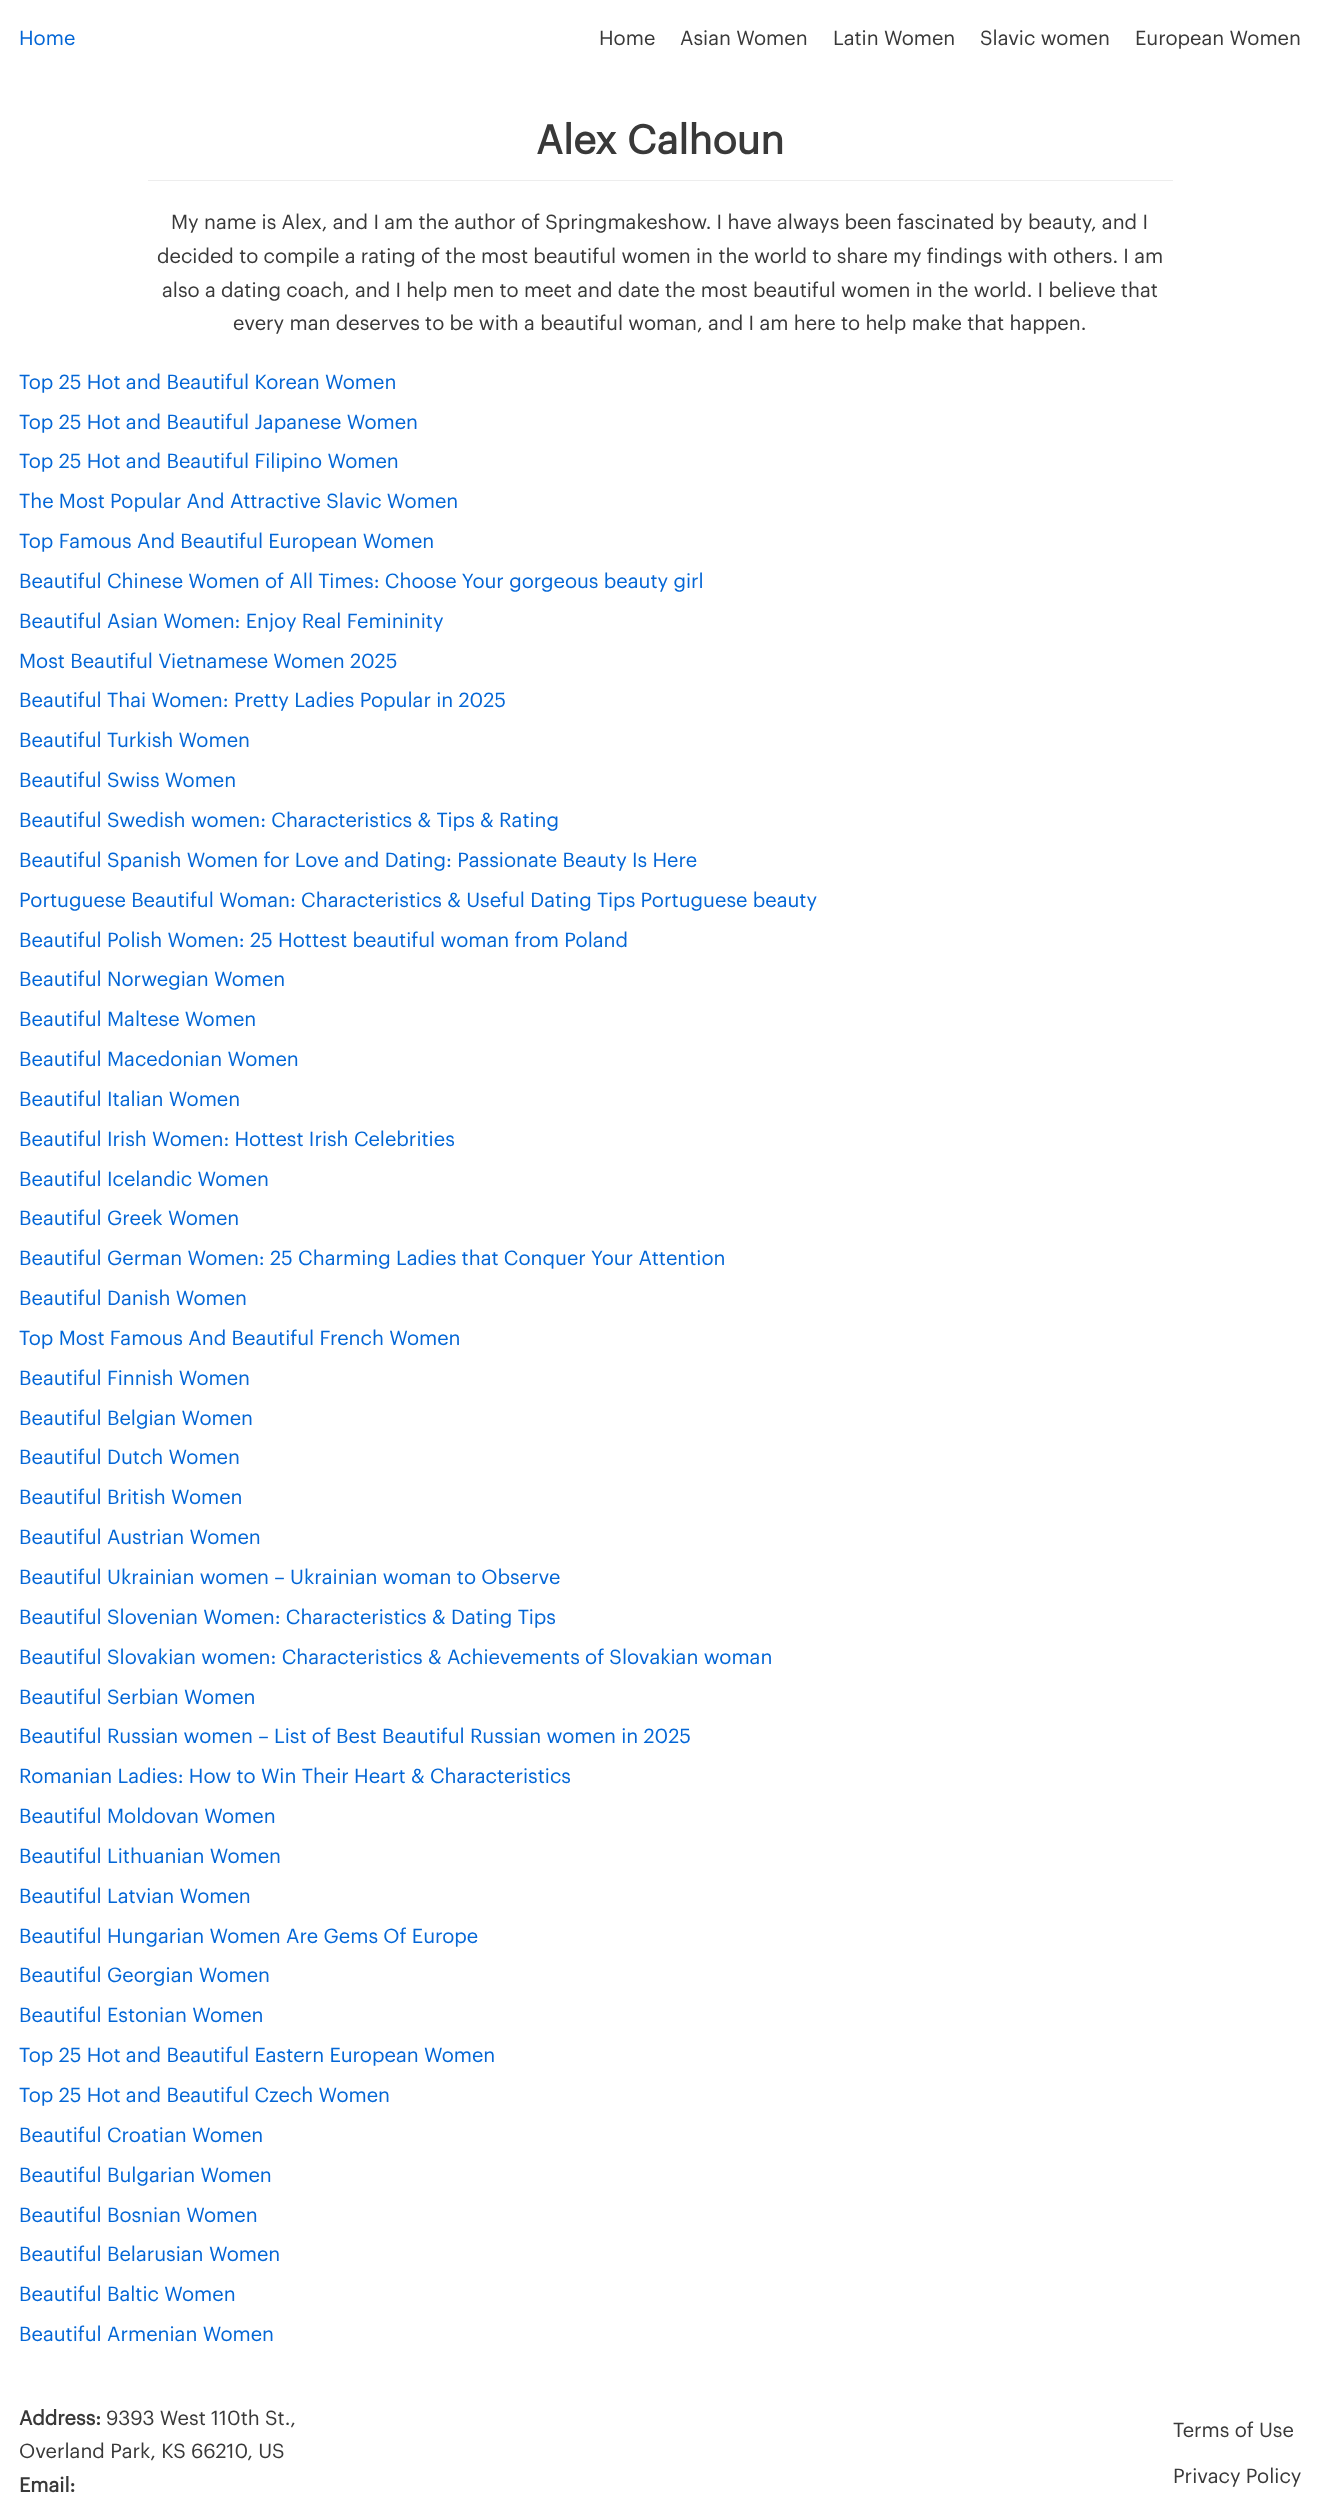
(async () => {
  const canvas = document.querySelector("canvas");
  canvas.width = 1320;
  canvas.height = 2501;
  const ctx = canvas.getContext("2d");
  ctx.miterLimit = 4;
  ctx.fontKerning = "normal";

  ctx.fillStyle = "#ffffff";
  ctx.fillRect(0, 0, 1320, 2501);
  ctx.fillStyle = "#ededed";
  ctx.fillRect(148, 180, 1025, 1);
  ctx.font = "20px Graphik";
  ctx.fillStyle = "#0366d6";
  ctx.fillText("Home", 19, 45);
  ctx.fillStyle = "#393939";
  for (const [text, x, y] of [
    ["Home", 599, 45],
    ["Asian Women", 680, 45],
    ["Latin Women", 833, 45],
    ["Slavic women", 980, 45],
    ["European Women", 1135, 45],
  ]) {
    ctx.fillText(text, x, y);
  }
  ctx.font = "bold 40px Graphik";
  ctx.fillText("Alex Calhoun", 536, 154);
  ctx.font = "20px Graphik";
  for (const [text, x, y] of [
    ["My name is Alex, and I am the author of Springmakeshow. I have always been fascinated by beauty, and I", 171, 229],
    ["decided to compile a rating of the most beautiful women in the world to share my findings with others. I am", 157, 263],
    ["also a dating coach, and I help men to meet and date the most beautiful women in the world. I believe that", 162, 297],
    ["every man deserves to be with a beautiful woman, and I am here to help make that happen.", 233, 330],
  ]) {
    ctx.fillText(text, x, y);
  }
  ctx.fillStyle = "#0366d6";
  for (const [text, x, y] of [
    ["Top 25 Hot and Beautiful Korean Women", 19, 389],
    ["Top 25 Hot and Beautiful Japanese Women", 19, 429],
    ["Top 25 Hot and Beautiful Filipino Women", 19, 468],
    ["The Most Popular And Attractive Slavic Women", 19, 508],
    ["Top Famous And Beautiful European Women", 19, 548],
    ["Beautiful Chinese Women of All Times: Choose Your gorgeous beauty girl", 19, 588],
    ["Beautiful Asian Women: Enjoy Real Femininity", 19, 628],
    ["Most Beautiful Vietnamese Women 2025", 19, 668],
    ["Beautiful Thai Women: Pretty Ladies Popular in 2025", 19, 707],
    ["Beautiful Turkish Women", 19, 747],
    ["Beautiful Swiss Women", 19, 787],
    ["Beautiful Swedish women: Characteristics & Tips & Rating", 19, 827],
    ["Beautiful Spanish Women for Love and Dating: Passionate Beauty Is Here", 19, 867],
    ["Portuguese Beautiful Woman: Characteristics & Useful Dating Tips Portuguese beauty", 19, 907],
    ["Beautiful Polish Women: 25 Hottest beautiful woman from Poland", 19, 947],
    ["Beautiful Norwegian Women", 19, 986],
    ["Beautiful Maltese Women", 19, 1026],
    ["Beautiful Macedonian Women", 19, 1066],
    ["Beautiful Italian Women", 19, 1106],
    ["Beautiful Irish Women: Hottest Irish Celebrities", 19, 1146],
    ["Beautiful Icelandic Women", 19, 1186],
    ["Beautiful Greek Women", 19, 1225],
    ["Beautiful German Women: 25 Charming Ladies that Conquer Your Attention", 19, 1265],
    ["Beautiful Danish Women", 19, 1305],
    ["Top Most Famous And Beautiful French Women", 19, 1345],
    ["Beautiful Finnish Women", 19, 1385],
    ["Beautiful Belgian Women", 19, 1425],
    ["Beautiful Dutch Women", 19, 1464],
    ["Beautiful British Women", 19, 1504],
    ["Beautiful Austrian Women", 19, 1544],
    ["Beautiful Ukrainian women – Ukrainian woman to Observe", 19, 1584],
    ["Beautiful Slovenian Women: Characteristics & Dating Tips", 19, 1624],
    ["Beautiful Slovakian women: Characteristics & Achievements of Slovakian woman", 19, 1664],
    ["Beautiful Serbian Women", 19, 1704],
    ["Beautiful Russian women – List of Best Beautiful Russian women in 2025", 19, 1743],
    ["Romanian Ladies: How to Win Their Heart & Characteristics", 19, 1783],
    ["Beautiful Moldovan Women", 19, 1823],
    ["Beautiful Lithuanian Women", 19, 1863],
    ["Beautiful Latvian Women", 19, 1903],
    ["Beautiful Hungarian Women Are Gems Of Europe", 19, 1943],
    ["Beautiful Georgian Women", 19, 1982],
    ["Beautiful Estonian Women", 19, 2022],
    ["Top 25 Hot and Beautiful Eastern European Women", 19, 2062],
    ["Top 25 Hot and Beautiful Czech Women", 19, 2102],
    ["Beautiful Croatian Women", 19, 2142],
    ["Beautiful Bulgarian Women", 19, 2182],
    ["Beautiful Bosnian Women", 19, 2222],
    ["Beautiful Belarusian Women", 19, 2261],
    ["Beautiful Baltic Women", 19, 2301],
    ["Beautiful Armenian Women", 19, 2341],
  ]) {
    ctx.fillText(text, x, y);
  }
  ctx.font = "bold 20px Graphik";
  ctx.fillStyle = "#393939";
  ctx.fillText("Address:", 19, 2425);
  ctx.font = "20px Graphik";
  ctx.fillText("9393 West 110th St.,", 106, 2425);
  ctx.fillText("Overland Park, KS 66210, US", 19, 2458);
  ctx.font = "bold 20px Graphik";
  ctx.fillText("Email:", 19, 2492);
  ctx.font = "20px Graphik";
  ctx.fillText("Terms of Use", 1173, 2437);
  ctx.fillText("Privacy Policy", 1173, 2483);
})();
